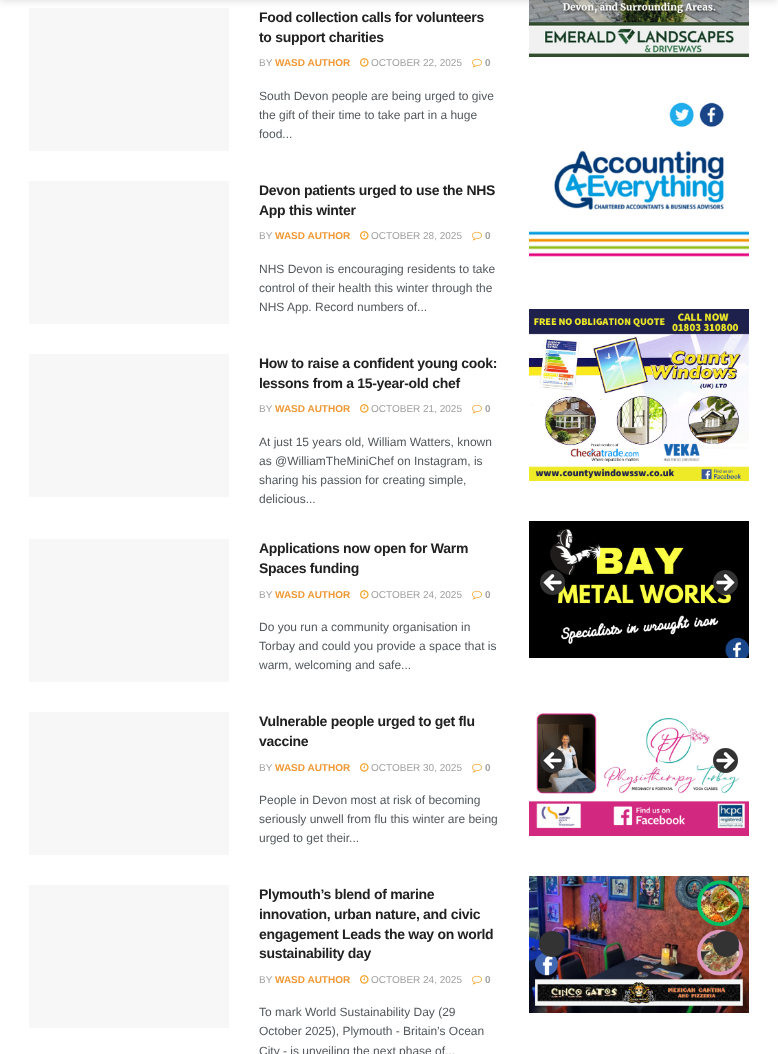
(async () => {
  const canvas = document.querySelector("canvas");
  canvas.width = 778;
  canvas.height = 1054;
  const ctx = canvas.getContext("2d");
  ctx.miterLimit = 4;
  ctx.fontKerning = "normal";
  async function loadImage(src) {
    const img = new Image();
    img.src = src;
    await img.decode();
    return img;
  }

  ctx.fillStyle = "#ffffff";
  ctx.fillRect(0, 0, 778, 1054);
  ctx.fillStyle = "#f7f7f7";
  ctx.fillRect(29, 8, 200, 143);
  ctx.drawImage(await loadImage("img/3.png"), 529, 0, 220, 57);
  ctx.fillStyle = "rgba(0, 0, 0, 0.1)";
  ctx.filter = "blur(3px)";
  ctx.beginPath();
  ctx.rect(0, -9, 778, 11);
  ctx.fill();
  ctx.filter = "none";
  ctx.drawImage(await loadImage("img/1.png"), 360, 58, 9, 9);
  ctx.drawImage(await loadImage("img/2.png"), 472, 58, 10, 10);
  ctx.fillStyle = "#f7f7f7";
  ctx.fillRect(29, 181, 200, 143);
  ctx.drawImage(await loadImage("img/1.png"), 360, 231, 9, 9);
  ctx.drawImage(await loadImage("img/2.png"), 472, 231, 10, 10);
  ctx.fillRect(29, 354, 200, 143);
  ctx.drawImage(await loadImage("img/1.png"), 360, 404, 9, 9);
  ctx.drawImage(await loadImage("img/2.png"), 472, 404, 10, 10);
  ctx.fillRect(29, 539, 200, 143);
  ctx.drawImage(await loadImage("img/1.png"), 360, 590, 9, 9);
  ctx.drawImage(await loadImage("img/2.png"), 472, 590, 10, 10);
  ctx.fillRect(29, 712, 200, 143);
  ctx.drawImage(await loadImage("img/1.png"), 360, 763, 9, 9);
  ctx.drawImage(await loadImage("img/2.png"), 472, 763, 10, 10);
  ctx.fillRect(29, 885, 200, 143);
  ctx.drawImage(await loadImage("img/1.png"), 360, 975, 9, 9);
  ctx.drawImage(await loadImage("img/2.png"), 472, 975, 10, 10);
  ctx.drawImage(await loadImage("img/4.png"), 529, 102, 220, 155);
  ctx.drawImage(await loadImage("img/5.png"), 529, 309, 220, 172);
  ctx.drawImage(await loadImage("img/6.png"), 529, 521, 220, 137);
  ctx.drawImage(await loadImage("img/7.png"), 540, 570, 25, 25);
  ctx.drawImage(await loadImage("img/8.png"), 713, 570, 25, 25);
  ctx.drawImage(await loadImage("img/9.png"), 529, 713, 220, 123);
  ctx.drawImage(await loadImage("img/10.png"), 540, 748, 25, 25);
  ctx.drawImage(await loadImage("img/11.png"), 713, 748, 25, 25);
  ctx.drawImage(await loadImage("img/12.png"), 529, 876, 220, 137);
  ctx.fillStyle = "#333333";
  ctx.beginPath();
  ctx.arc(552, 944, 13, 0, Math.PI * 2);
  ctx.fill();
  ctx.beginPath();
  ctx.arc(726, 944, 13, 0, Math.PI * 2);
  ctx.fill();
  ctx.letterSpacing = "-0.3px";
  ctx.font = "bold 14px Liberation Sans";
  ctx.fillStyle = "#212121";
  ctx.fillText("Food collection calls for volunteers", 259, 22);
  ctx.fillText("to support charities", 259, 42);
  ctx.letterSpacing = "0px";
  ctx.font = "10px Liberation Sans";
  ctx.fillStyle = "#a0a0a0";
  ctx.fillText("BY", 259, 66);
  ctx.font = "bold 10px Liberation Sans";
  ctx.fillStyle = "#ef9937";
  ctx.fillText("WASD AUTHOR", 275, 66);
  ctx.font = "10px Liberation Sans";
  ctx.fillStyle = "#a0a0a0";
  ctx.fillText("OCTOBER 22, 2025", 371, 66);
  ctx.font = "bold 10px Liberation Sans";
  ctx.fillText("0", 485, 66);
  ctx.font = "12px Liberation Sans";
  ctx.fillStyle = "#53585c";
  for (const [text, x, y] of [
    ["South Devon people are being urged to give", 259, 100],
    ["the gift of their time to take part in a huge", 259, 119],
    ["food...", 259, 138],
  ]) {
    ctx.fillText(text, x, y);
  }
  ctx.letterSpacing = "-0.3px";
  ctx.font = "bold 14px Liberation Sans";
  ctx.fillStyle = "#212121";
  ctx.fillText("Devon patients urged to use the NHS", 259, 195);
  ctx.fillText("App this winter", 259, 215);
  ctx.letterSpacing = "0px";
  ctx.font = "10px Liberation Sans";
  ctx.fillStyle = "#a0a0a0";
  ctx.fillText("BY", 259, 239);
  ctx.font = "bold 10px Liberation Sans";
  ctx.fillStyle = "#ef9937";
  ctx.fillText("WASD AUTHOR", 275, 239);
  ctx.font = "10px Liberation Sans";
  ctx.fillStyle = "#a0a0a0";
  ctx.fillText("OCTOBER 28, 2025", 371, 239);
  ctx.font = "bold 10px Liberation Sans";
  ctx.fillText("0", 485, 239);
  ctx.font = "12px Liberation Sans";
  ctx.fillStyle = "#53585c";
  for (const [text, x, y] of [
    ["NHS Devon is encouraging residents to take", 259, 273],
    ["control of their health this winter through the", 259, 292],
    ["NHS App. Record numbers of...", 259, 311],
  ]) {
    ctx.fillText(text, x, y);
  }
  ctx.letterSpacing = "-0.3px";
  ctx.font = "bold 14px Liberation Sans";
  ctx.fillStyle = "#212121";
  ctx.fillText("How to raise a confident young cook:", 259, 368);
  ctx.fillText("lessons from a 15-year-old chef", 259, 388);
  ctx.letterSpacing = "0px";
  ctx.font = "10px Liberation Sans";
  ctx.fillStyle = "#a0a0a0";
  ctx.fillText("BY", 259, 412);
  ctx.font = "bold 10px Liberation Sans";
  ctx.fillStyle = "#ef9937";
  ctx.fillText("WASD AUTHOR", 275, 412);
  ctx.font = "10px Liberation Sans";
  ctx.fillStyle = "#a0a0a0";
  ctx.fillText("OCTOBER 21, 2025", 371, 412);
  ctx.font = "bold 10px Liberation Sans";
  ctx.fillText("0", 485, 412);
  ctx.font = "12px Liberation Sans";
  ctx.fillStyle = "#53585c";
  for (const [text, x, y] of [
    ["At just 15 years old, William Watters, known", 259, 446],
    ["as @WilliamTheMiniChef on Instagram, is", 259, 465],
    ["sharing his passion for creating simple,", 259, 484],
    ["delicious...", 259, 503],
  ]) {
    ctx.fillText(text, x, y);
  }
  ctx.letterSpacing = "-0.3px";
  ctx.font = "bold 14px Liberation Sans";
  ctx.fillStyle = "#212121";
  ctx.fillText("Applications now open for Warm", 259, 553);
  ctx.fillText("Spaces funding", 259, 573);
  ctx.letterSpacing = "0px";
  ctx.font = "10px Liberation Sans";
  ctx.fillStyle = "#a0a0a0";
  ctx.fillText("BY", 259, 598);
  ctx.font = "bold 10px Liberation Sans";
  ctx.fillStyle = "#ef9937";
  ctx.fillText("WASD AUTHOR", 275, 598);
  ctx.font = "10px Liberation Sans";
  ctx.fillStyle = "#a0a0a0";
  ctx.fillText("OCTOBER 24, 2025", 371, 598);
  ctx.font = "bold 10px Liberation Sans";
  ctx.fillText("0", 485, 598);
  ctx.font = "12px Liberation Sans";
  ctx.fillStyle = "#53585c";
  for (const [text, x, y] of [
    ["Do you run a community organisation in", 259, 631],
    ["Torbay and could you provide a space that is", 259, 650],
    ["warm, welcoming and safe...", 259, 669],
  ]) {
    ctx.fillText(text, x, y);
  }
  ctx.letterSpacing = "-0.3px";
  ctx.font = "bold 14px Liberation Sans";
  ctx.fillStyle = "#212121";
  ctx.fillText("Vulnerable people urged to get flu", 259, 726);
  ctx.fillText("vaccine", 259, 746);
  ctx.letterSpacing = "0px";
  ctx.font = "10px Liberation Sans";
  ctx.fillStyle = "#a0a0a0";
  ctx.fillText("BY", 259, 771);
  ctx.font = "bold 10px Liberation Sans";
  ctx.fillStyle = "#ef9937";
  ctx.fillText("WASD AUTHOR", 275, 771);
  ctx.font = "10px Liberation Sans";
  ctx.fillStyle = "#a0a0a0";
  ctx.fillText("OCTOBER 30, 2025", 371, 771);
  ctx.font = "bold 10px Liberation Sans";
  ctx.fillText("0", 485, 771);
  ctx.font = "12px Liberation Sans";
  ctx.fillStyle = "#53585c";
  for (const [text, x, y] of [
    ["People in Devon most at risk of becoming", 259, 804],
    ["seriously unwell from flu this winter are being", 259, 823],
    ["urged to get their...", 259, 842],
  ]) {
    ctx.fillText(text, x, y);
  }
  ctx.letterSpacing = "-0.3px";
  ctx.font = "bold 14px Liberation Sans";
  ctx.fillStyle = "#212121";
  for (const [text, x, y] of [
    ["Plymouth’s blend of marine", 259, 899],
    ["innovation, urban nature, and civic", 259, 919],
    ["engagement Leads the way on world", 259, 939],
    ["sustainability day", 259, 958],
  ]) {
    ctx.fillText(text, x, y);
  }
  ctx.letterSpacing = "0px";
  ctx.font = "10px Liberation Sans";
  ctx.fillStyle = "#a0a0a0";
  ctx.fillText("BY", 259, 983);
  ctx.font = "bold 10px Liberation Sans";
  ctx.fillStyle = "#ef9937";
  ctx.fillText("WASD AUTHOR", 275, 983);
  ctx.font = "10px Liberation Sans";
  ctx.fillStyle = "#a0a0a0";
  ctx.fillText("OCTOBER 24, 2025", 371, 983);
  ctx.font = "bold 10px Liberation Sans";
  ctx.fillText("0", 485, 983);
  ctx.font = "12px Liberation Sans";
  ctx.fillStyle = "#53585c";
  for (const [text, x, y] of [
    ["To mark World Sustainability Day (29", 259, 1016],
    ["October 2025), Plymouth - Britain’s Ocean", 259, 1035],
    ["City - is unveiling the next phase of...", 259, 1055],
  ]) {
    ctx.fillText(text, x, y);
  }
})();
